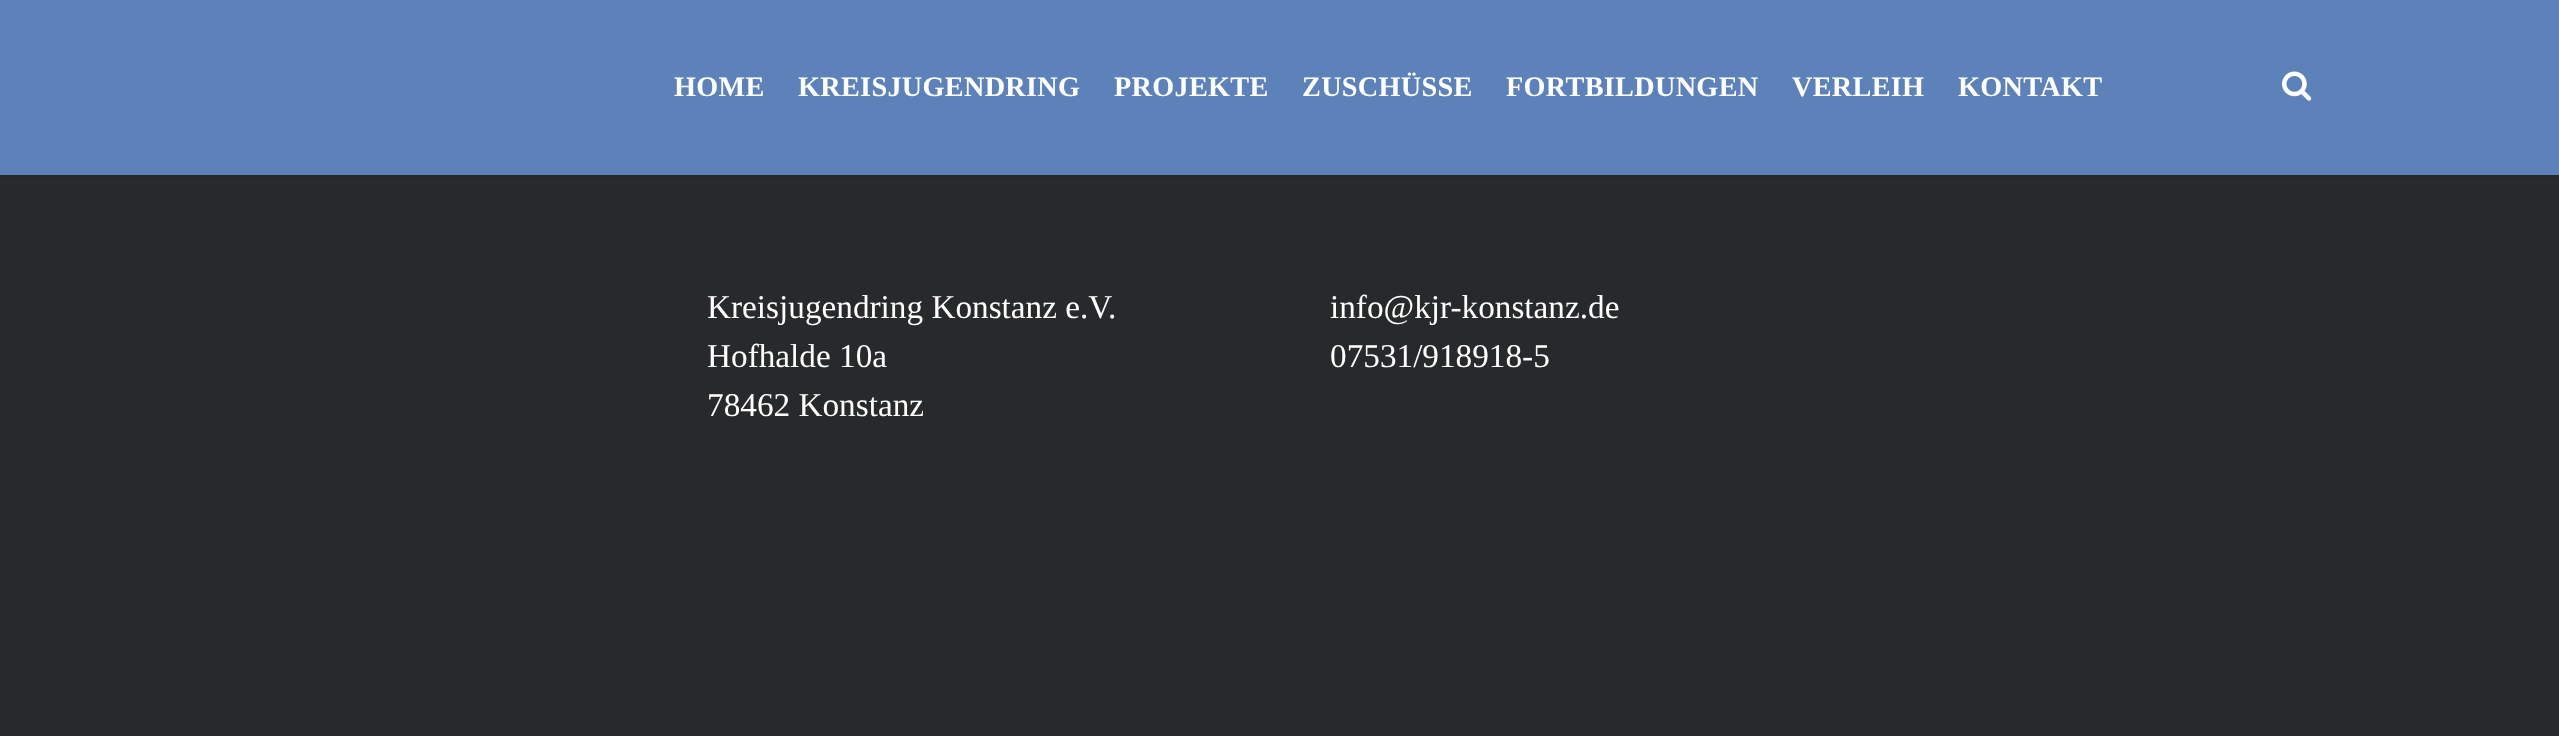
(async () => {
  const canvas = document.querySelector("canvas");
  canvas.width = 2559;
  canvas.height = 736;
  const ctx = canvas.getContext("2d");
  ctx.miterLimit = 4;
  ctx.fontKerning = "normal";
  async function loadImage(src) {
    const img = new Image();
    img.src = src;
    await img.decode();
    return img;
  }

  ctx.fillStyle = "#27292b";
  ctx.fillRect(0, 0, 2559, 736);
  ctx.fillStyle = "#242628";
  ctx.fillRect(0, 175, 2559, 2);
  ctx.fillStyle = "#5d81b9";
  ctx.fillRect(0, 0, 2559, 175);
  ctx.drawImage(await loadImage("img/1.png"), 2282, 71, 30, 30);
  ctx.letterSpacing = "0.3px";
  ctx.font = "bold 28.25px Liberation Serif";
  ctx.fillStyle = "#ffffff";
  for (const [text, x, y] of [
    ["HOME", 674, 96],
    ["KREISJUGENDRING", 798, 96],
    ["PROJEKTE", 1114, 96],
    ["ZUSCHÜSSE", 1302, 96],
    ["FORTBILDUNGEN", 1506, 96],
    ["VERLEIH", 1792, 96],
    ["KONTAKT", 1958, 96],
  ]) {
    ctx.fillText(text, x, y);
  }
  ctx.letterSpacing = "0px";
  ctx.font = "33.25px Liberation Serif";
  for (const [text, x, y] of [
    ["Kreisjugendring Konstanz e.V.", 707, 318],
    ["Hofhalde 10a", 707, 367],
    ["78462 Konstanz", 707, 416],
    ["info@kjr-konstanz.de", 1330, 318],
    ["07531/918918-5", 1330, 367],
  ]) {
    ctx.fillText(text, x, y);
  }
})();
